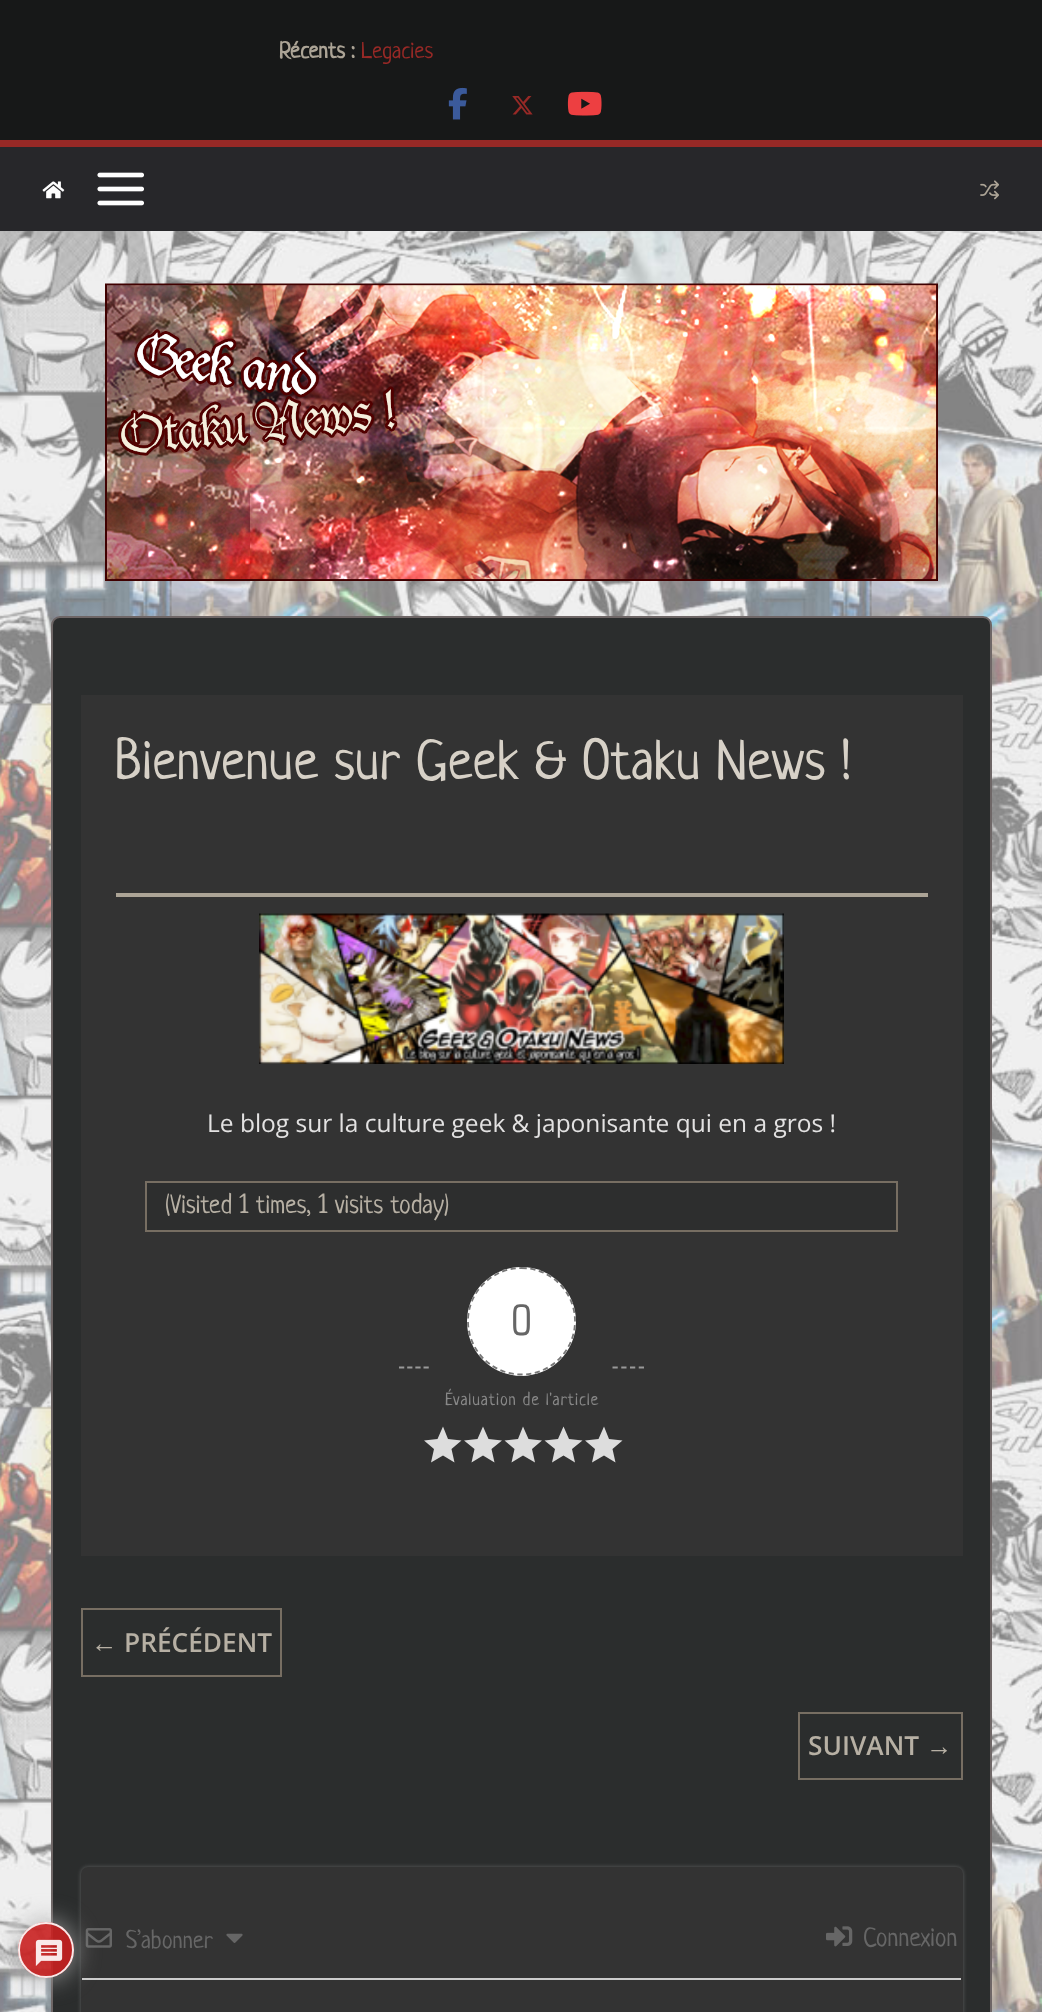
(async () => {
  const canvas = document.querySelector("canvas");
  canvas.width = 1042;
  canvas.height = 2012;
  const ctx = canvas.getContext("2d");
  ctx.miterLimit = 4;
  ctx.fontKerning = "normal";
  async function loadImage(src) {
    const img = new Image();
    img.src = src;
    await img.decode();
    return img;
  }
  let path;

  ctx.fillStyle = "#ffffff";
  ctx.fillRect(0, 0, 1042, 2012);
  ctx.drawImage(await loadImage("img/1.png"), 0, 231, 1042, 1781);
  ctx.fillStyle = "#2b2d2d";
  ctx.beginPath();
  ctx.roundRect(52, 617, 939, 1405, 8);
  ctx.fill();
  ctx.strokeStyle = "#6e6666";
  ctx.lineWidth = 2;
  ctx.stroke();
  ctx.fillStyle = "rgba(255, 255, 255, 0.24)";
  ctx.filter = "blur(2px)";
  ctx.beginPath();
  ctx.roundRect(81, 1867, 882, 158, 7);
  ctx.fill();
  ctx.filter = "none";
  ctx.fillStyle = "#333333";
  ctx.beginPath();
  ctx.roundRect(81, 1867, 882, 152, 7);
  ctx.fill();
  ctx.fillStyle = "#cccccc";
  ctx.fillRect(82, 1978, 879, 2);
  ctx.drawImage(await loadImage("img/11.png"), 85, 1928, 27, 20);
  ctx.save();
  path = new Path2D("M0 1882H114V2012H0ZM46 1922C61.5 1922 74 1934.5 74 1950C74 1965.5 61.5 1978 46 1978C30.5 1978 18 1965.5 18 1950C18 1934.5 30.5 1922 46 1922Z");
  ctx.clip(path, "evenodd");
  ctx.fillStyle = "rgba(170, 170, 170, 0.9)";
  ctx.filter = "blur(13px)";
  ctx.beginPath();
  ctx.roundRect(18, 1922, 56, 56, 28);
  ctx.fill();
  ctx.filter = "none";
  ctx.restore();
  ctx.fillStyle = "rgba(201, 32, 32, 0.9)";
  ctx.beginPath();
  ctx.arc(46, 1950, 28, 0, Math.PI * 2);
  ctx.fill();
  ctx.beginPath();
  ctx.arc(46, 1950, 27, 0, Math.PI * 2);
  ctx.strokeStyle = "rgba(255, 255, 255, 0.9)";
  ctx.stroke();
  ctx.drawImage(await loadImage("img/2.png"), 35, 1939, 28, 27);
  ctx.fillStyle = "#171818";
  ctx.fillRect(0, 0, 1042, 140);
  ctx.drawImage(await loadImage("img/3.png"), 448, 87, 19, 33);
  ctx.drawImage(await loadImage("img/4.png"), 512, 96, 21, 19);
  ctx.drawImage(await loadImage("img/5.png"), 567, 91, 35, 25);
  ctx.fillStyle = "#27272a";
  ctx.fillRect(0, 147, 1042, 84);
  ctx.fillStyle = "#972926";
  ctx.fillRect(0, 140, 1042, 7);
  ctx.drawImage(await loadImage("img/6.png"), 42, 181, 23, 18);
  ctx.drawImage(await loadImage("img/7.png"), 97, 172, 47, 34);
  ctx.drawImage(await loadImage("img/8.png"), 980, 180, 19, 20);
  ctx.drawImage(await loadImage("img/9.png"), 105, 283, 833, 298);
  ctx.fillStyle = "#333333";
  ctx.fillRect(81, 695, 882, 861);
  ctx.fillStyle = "#aca496";
  ctx.fillRect(116, 893, 812, 4);
  ctx.drawImage(await loadImage("img/10.png"), 259, 913, 525, 151);
  ctx.fillStyle = "#2d2e2e";
  ctx.beginPath();
  ctx.rect(146, 1182, 751, 49);
  ctx.fill();
  ctx.strokeStyle = "#776e62";
  ctx.stroke();
  path = new Path2D("M399 1367.5H429");
  ctx.strokeStyle = "#999999";
  ctx.lineWidth = 1.8;
  ctx.setLineDash([5.25, 2.92]);
  ctx.stroke(path);
  ctx.fillStyle = "#ffffff";
  ctx.beginPath();
  ctx.arc(521.5, 1321.5, 54.5, 0, Math.PI * 2);
  ctx.fill();
  path = new Path2D("M521.5 1268C551 1268 575 1292 575 1321C575 1350.5 551 1374.5 521.5 1374.5C492 1374.5 468 1350.5 468 1321C468 1292 492 1268 521.5 1268Z");
  ctx.strokeStyle = "#777777";
  ctx.setLineDash([5.25, 3.5]);
  ctx.stroke(path);
  ctx.fillStyle = "#dddddd";
  path = new Path2D("M443 1455.5L454.5 1462.5L451.5 1449L461.5 1440.5L448 1439L443 1426.5L437.5 1439L424 1440.5L434 1449L431 1462.5Z");
  ctx.fill(path);
  path = new Path2D("M483 1455.5L494.5 1462.5L491.5 1449L502 1440.5L488.5 1439L483 1426.5L477.5 1439L464 1440.5L474.5 1449L471.5 1462.5Z");
  ctx.fill(path);
  path = new Path2D("M523 1455.5L535 1462.5L532 1449L542 1440.5L528.5 1439L523 1426.5L518 1439L504.5 1440.5L514.5 1449L511.5 1462.5Z");
  ctx.fill(path);
  path = new Path2D("M563.5 1455.5L575 1462.5L572 1449L582.5 1440.5L569 1439L563.5 1426.5L558 1439L544.5 1440.5L555 1449L552 1462.5Z");
  ctx.fill(path);
  path = new Path2D("M604 1455.5L615.5 1462.5L612.5 1449L622.5 1440.5L609 1439L604 1426.5L598.5 1439L585 1440.5L595 1449L592 1462.5Z");
  ctx.fill(path);
  path = new Path2D("M612.5 1367.5H644");
  ctx.strokeStyle = "#999999";
  ctx.stroke(path);
  ctx.strokeStyle = "#776e62";
  ctx.lineWidth = 2;
  ctx.setLineDash([]);
  ctx.strokeRect(82, 1609, 199, 67);
  ctx.strokeRect(799, 1713, 163, 66);
  ctx.drawImage(await loadImage("img/12.png"), 226, 1933, 17, 10);
  ctx.drawImage(await loadImage("img/13.png"), 826, 1926, 27, 21);
  ctx.font = "bold 23px Neucha";
  ctx.fillStyle = "#aca496";
  ctx.fillText("Récents :", 279, 58);
  ctx.font = "23px Neucha";
  ctx.fillStyle = "#972926";
  ctx.fillText("Legacies", 361, 58);
  ctx.font = "56px Neucha";
  ctx.fillStyle = "#d7d1c7";
  ctx.fillText("Bienvenue sur Geek & Otaku News !", 115, 779);
  ctx.font = "24.5px Open Sans";
  ctx.fillStyle = "#e3e2e2";
  ctx.fillText("Le blog sur la culture geek & japonisante qui en a gros !", 207, 1132);
  ctx.font = "26.25px Neucha";
  ctx.fillStyle = "#b7b0a4";
  ctx.fillText("(Visited 1 times, 1 visits today)", 165, 1213);
  ctx.font = "42px 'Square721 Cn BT'";
  ctx.fillStyle = "#666666";
  ctx.fillText("0", 511, 1335);
  ctx.letterSpacing = "0.9px";
  ctx.font = "17.5px Neucha";
  ctx.fillStyle = "#888888";
  ctx.fillText("Évaluation de l'article", 445, 1405);
  ctx.letterSpacing = "0px";
  ctx.font = "bold 26.25px Liberation Serif";
  ctx.fillStyle = "#b7b0a4";
  ctx.fillText("←", 91, 1652);
  ctx.font = "600 26.25px Open Sans";
  ctx.fillText("PRÉCÉDENT", 124, 1652);
  ctx.fillText("SUIVANT", 808, 1755);
  ctx.font = "bold 26.25px Liberation Serif";
  ctx.fillText("→", 926, 1755);
  ctx.font = "24.5px Neucha";
  ctx.fillStyle = "#666666";
  ctx.fillText("S’abonner", 126, 1948);
  ctx.font = "26.25px Neucha";
  ctx.fillText("Connexion", 863, 1946);
})();
